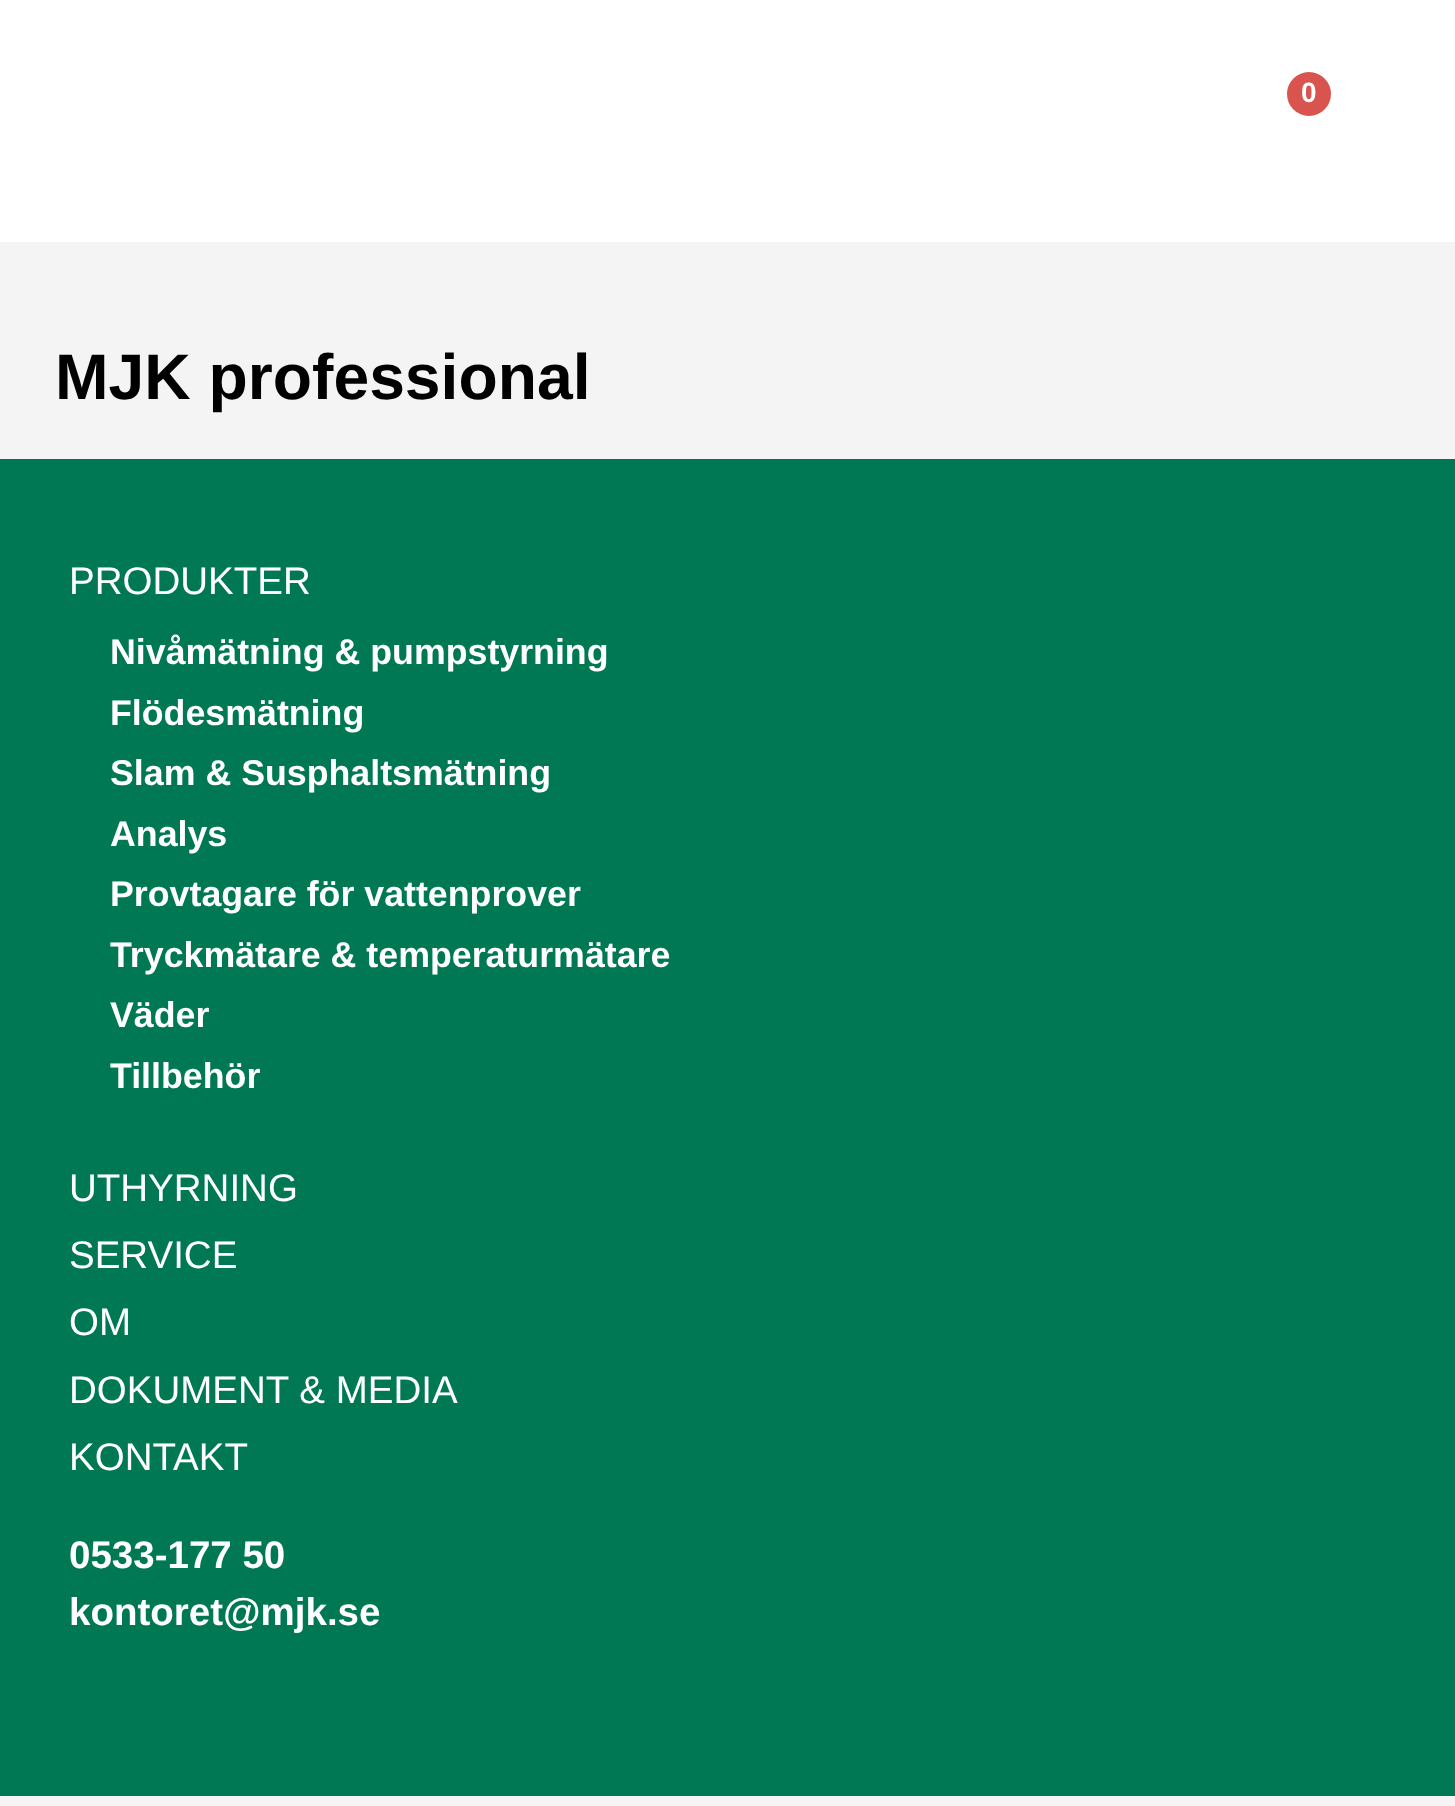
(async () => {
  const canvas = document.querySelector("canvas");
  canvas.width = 1455;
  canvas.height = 1806;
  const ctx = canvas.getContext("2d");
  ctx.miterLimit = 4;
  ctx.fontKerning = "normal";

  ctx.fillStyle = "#f4f4f4";
  ctx.fillRect(0, 0, 1455, 1806);
  ctx.fillStyle = "#ffffff";
  ctx.fillRect(0, 0, 1455, 242);
  ctx.fillStyle = "#d9534f";
  ctx.beginPath();
  ctx.arc(1309, 94, 22, 0, Math.PI * 2);
  ctx.fill();
  ctx.fillStyle = "#007853";
  ctx.fillRect(0, 459, 1455, 1337);
  ctx.font = "bold 28px Liberation Sans";
  ctx.fillStyle = "#ffffff";
  ctx.fillText("0", 1301, 102);
  ctx.font = "bold 64.25px Liberation Sans";
  ctx.fillStyle = "#000000";
  ctx.fillText("MJK professional", 55, 399);
  ctx.font = "38.5px Liberation Sans";
  ctx.fillStyle = "#ffffff";
  ctx.fillText("PRODUKTER", 69, 594);
  ctx.font = "bold 35.75px Liberation Sans";
  for (const [text, x, y] of [
    ["Nivåmätning & pumpstyrning", 110, 664],
    ["Flödesmätning", 110, 725],
    ["Slam & Susphaltsmätning", 110, 785],
    ["Analys", 110, 846],
    ["Provtagare för vattenprover", 110, 906],
    ["Tryckmätare & temperaturmätare", 110, 967],
    ["Väder", 110, 1027],
    ["Tillbehör", 110, 1088],
  ]) {
    ctx.fillText(text, x, y);
  }
  ctx.font = "38.5px Liberation Sans";
  for (const [text, x, y] of [
    ["UTHYRNING", 69, 1201],
    ["SERVICE", 69, 1268],
    ["OM", 69, 1335],
    ["DOKUMENT & MEDIA", 69, 1403],
    ["KONTAKT", 69, 1470],
  ]) {
    ctx.fillText(text, x, y);
  }
  ctx.font = "bold 38.5px Liberation Sans";
  ctx.fillText("0533-177 50", 69, 1568);
  ctx.fillText("kontoret@mjk.se", 69, 1625);
})();
